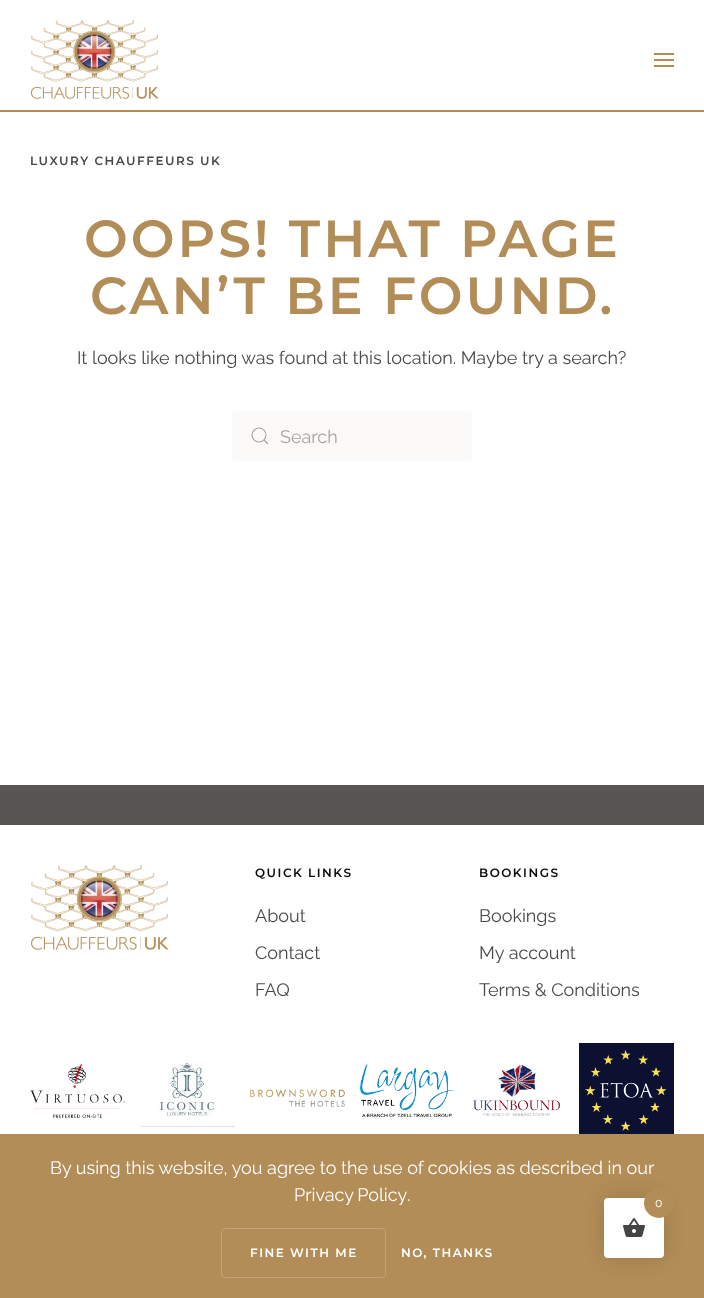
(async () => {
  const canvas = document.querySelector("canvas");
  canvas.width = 704;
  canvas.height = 1298;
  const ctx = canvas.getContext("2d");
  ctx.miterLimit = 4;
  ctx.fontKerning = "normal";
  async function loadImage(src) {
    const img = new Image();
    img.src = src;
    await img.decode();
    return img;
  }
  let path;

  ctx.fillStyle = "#ffffff";
  ctx.fillRect(0, 0, 704, 1298);
  ctx.fillStyle = "#b38d57";
  ctx.fillRect(0, 110, 704, 2);
  ctx.drawImage(await loadImage("img/1.png"), 30, 20, 129, 79);
  for (const [x, y, w, h, color] of [
    [654, 53, 20, 2, "#b38d57"],
    [654, 59, 20, 2, "#b38d57"],
    [654, 65, 20, 2, "#b38d57"],
  ]) {
    ctx.fillStyle = color;
    ctx.fillRect(x, y, w, h);
  }
  ctx.fillStyle = "#fcfaf8";
  ctx.beginPath();
  ctx.roundRect(232, 411, 240, 50, 4);
  ctx.fill();
  ctx.beginPath();
  ctx.arc(259, 435, 7, 0, Math.PI * 2);
  ctx.strokeStyle = "#a3a3a3";
  ctx.lineWidth = 1.1;
  ctx.stroke();
  path = new Path2D("M264 440L268 444Z");
  ctx.stroke(path);
  ctx.fillStyle = "#575655";
  ctx.fillRect(0, 785, 704, 40);
  ctx.drawImage(await loadImage("img/2.png"), 31, 865, 138, 85);
  ctx.drawImage(await loadImage("img/3.png"), 30, 1064, 95, 54);
  ctx.drawImage(await loadImage("img/4.png"), 140, 1062, 95, 65);
  ctx.drawImage(await loadImage("img/5.png"), 250, 1089, 95, 18);
  ctx.drawImage(await loadImage("img/6.png"), 360, 1064, 94, 53);
  ctx.drawImage(await loadImage("img/7.png"), 473, 1065, 87, 51);
  ctx.drawImage(await loadImage("img/8.png"), 579, 1043, 95, 91);
  ctx.fillStyle = "#b38d57";
  ctx.fillRect(0, 1134, 704, 164);
  ctx.beginPath();
  ctx.roundRect(221.5, 1228.5, 164, 49, 3.5);
  ctx.strokeStyle = "#c2a479";
  ctx.lineWidth = 1;
  ctx.stroke();
  ctx.fillStyle = "rgba(0, 0, 0, 0.15)";
  ctx.filter = "blur(10px)";
  ctx.beginPath();
  ctx.roundRect(604, 1198, 60, 60, 4);
  ctx.fill();
  ctx.filter = "none";
  ctx.fillStyle = "#ffffff";
  ctx.beginPath();
  ctx.roundRect(604, 1198, 60, 60, 4);
  ctx.fill();
  ctx.fillStyle = "#b38d57";
  ctx.beginPath();
  ctx.arc(659, 1203, 15, 0, Math.PI * 2);
  ctx.fill();
  ctx.drawImage(await loadImage("img/9.png"), 623, 1218, 22, 19);
  ctx.letterSpacing = "1.5px";
  ctx.font = "100 12px Montserrat";
  ctx.fillStyle = "#484848";
  ctx.fillText("LUXURY CHAUFFEURS UK", 30, 165);
  ctx.letterSpacing = "3px";
  ctx.font = "100 52px Montserrat";
  ctx.fillStyle = "#b38d57";
  ctx.fillText("OOPS! THAT PAGE", 84, 257);
  ctx.fillText("CAN’T BE FOUND.", 90, 314);
  ctx.letterSpacing = "0px";
  ctx.font = "100 18px Raleway";
  ctx.fillStyle = "#484848";
  ctx.fillText("It looks like nothing was found at this location. Maybe try a search?", 77, 364);
  ctx.fillStyle = "#a3a3a3";
  ctx.fillText("Search", 280, 443);
  ctx.letterSpacing = "1.5px";
  ctx.font = "100 12px Montserrat";
  ctx.fillStyle = "#0a0a09";
  ctx.fillText("QUICK LINKS", 255, 877);
  ctx.letterSpacing = "0px";
  ctx.font = "100 18px Raleway";
  ctx.fillStyle = "#484848";
  for (const [text, x, y] of [
    ["About", 255, 922],
    ["Contact", 255, 959],
    ["FAQ", 255, 996],
  ]) {
    ctx.fillText(text, x, y);
  }
  ctx.letterSpacing = "1.5px";
  ctx.font = "100 12px Montserrat";
  ctx.fillStyle = "#0a0a09";
  ctx.fillText("BOOKINGS", 479, 877);
  ctx.letterSpacing = "0px";
  ctx.font = "100 18px Raleway";
  ctx.fillStyle = "#484848";
  for (const [text, x, y] of [
    ["Bookings", 479, 922],
    ["My account", 479, 959],
    ["Terms & Conditions", 479, 996],
  ]) {
    ctx.fillText(text, x, y);
  }
  ctx.fillStyle = "#ffffff";
  ctx.fillText("By using this website, you agree to the use of cookies as described in our", 50, 1174);
  ctx.wordSpacing = "-1px";
  ctx.fillText("Privacy Policy", 294, 1201);
  ctx.wordSpacing = "0px";
  ctx.fillText(".", 407, 1201);
  ctx.letterSpacing = "1.5px";
  ctx.font = "100 12px Montserrat";
  ctx.fillText("FINE WITH ME", 250, 1257);
  ctx.fillText("NO, THANKS", 401, 1257);
  ctx.letterSpacing = "0px";
  ctx.font = "100 12px Raleway";
  ctx.fillText("0", 655, 1207);
})();
